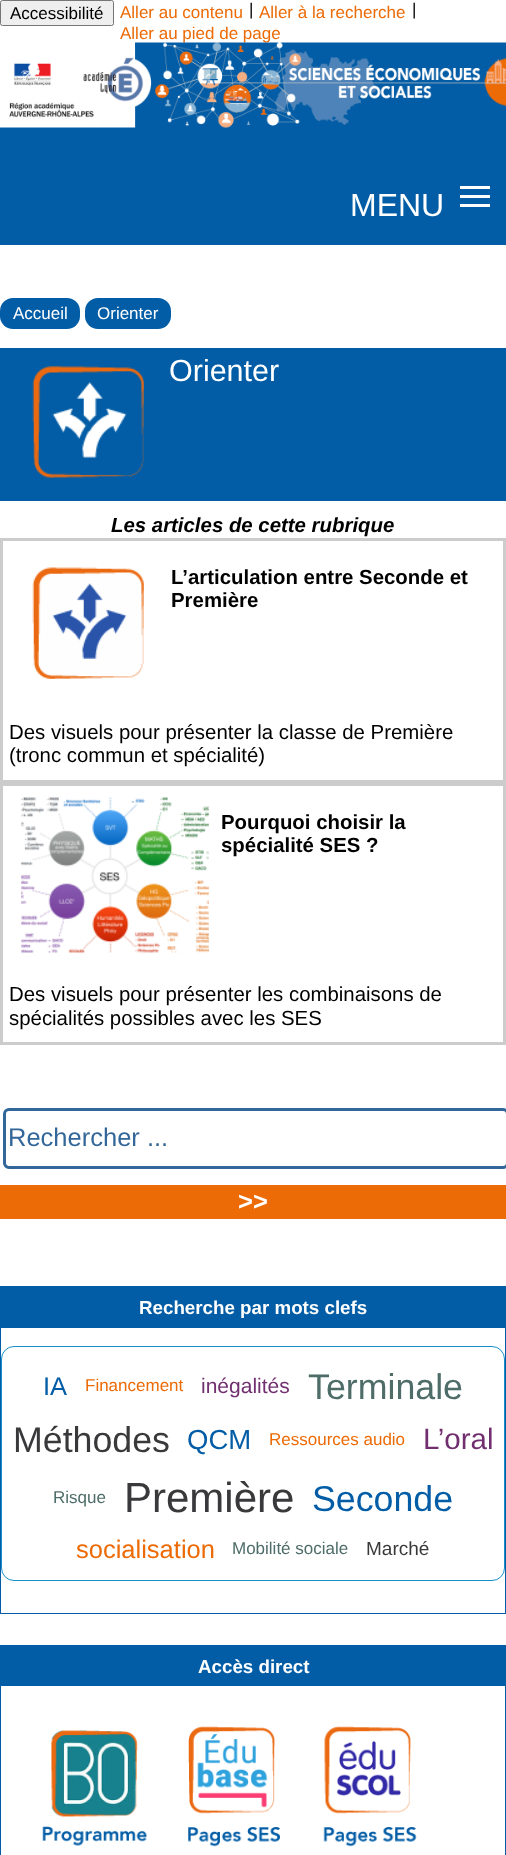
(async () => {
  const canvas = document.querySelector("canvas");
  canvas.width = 506;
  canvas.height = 1855;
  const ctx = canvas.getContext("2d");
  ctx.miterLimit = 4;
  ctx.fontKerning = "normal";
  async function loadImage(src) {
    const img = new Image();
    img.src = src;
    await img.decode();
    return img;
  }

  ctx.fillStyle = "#ffffff";
  ctx.fillRect(0, 0, 506, 1855);
  ctx.fillStyle = "#025da6";
  ctx.fillRect(0, 127, 506, 118);
  ctx.fillStyle = "#efefef";
  ctx.beginPath();
  ctx.roundRect(0.5, 0.5, 113, 25, 2);
  ctx.fill();
  ctx.strokeStyle = "#767676";
  ctx.stroke();
  for (const [x, y, w, h, color] of [
    [460, 195, 30, 3, "#ffffff"],
    [460, 186, 30, 3, "#ffffff"],
    [460, 204, 30, 3, "#ffffff"],
  ]) {
    ctx.fillStyle = color;
    ctx.fillRect(x, y, w, h);
  }
  ctx.fillStyle = "#025da6";
  ctx.beginPath();
  ctx.roundRect(0, 298, 80, 31, 13);
  ctx.fill();
  ctx.beginPath();
  ctx.roundRect(85, 298, 86, 31, 13);
  ctx.fill();
  ctx.fillRect(0, 348, 506, 153);
  ctx.drawImage(await loadImage("img/2.png"), 32, 366, 112, 112);
  ctx.strokeStyle = "#cccccc";
  ctx.lineWidth = 3;
  ctx.strokeRect(1.5, 539.5, 503, 242);
  ctx.drawImage(await loadImage("img/3.png"), 32, 567, 112, 112);
  ctx.strokeRect(1.5, 784.5, 503, 259);
  ctx.drawImage(await loadImage("img/4.png"), 21, 797, 188, 156);
  ctx.beginPath();
  ctx.roundRect(4.5, 1109.5, 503, 58, 4.5);
  ctx.strokeStyle = "#336699";
  ctx.stroke();
  for (const [x, y, w, h, color] of [
    [0, 1185, 506, 34, "#ed6b06"],
    [0, 1286, 506, 42, "#025da6"],
    [505, 1328, 1, 286, "#025da6"],
    [0, 1613, 506, 1, "#025da6"],
    [0, 1328, 1, 286, "#025da6"],
  ]) {
    ctx.fillStyle = color;
    ctx.fillRect(x, y, w, h);
  }
  ctx.beginPath();
  ctx.roundRect(1.5, 1346.5, 503, 234, 12.5);
  ctx.strokeStyle = "#178fcb";
  ctx.lineWidth = 1;
  ctx.stroke();
  for (const [x, y, w, h, color] of [
    [0, 1645, 506, 41, "#025da6"],
    [505, 1686, 1, 169, "#025da6"],
    [0, 1686, 1, 169, "#025da6"],
  ]) {
    ctx.fillStyle = color;
    ctx.fillRect(x, y, w, h);
  }
  ctx.drawImage(await loadImage("img/5.png"), 42, 1730, 105, 116);
  ctx.drawImage(await loadImage("img/6.png"), 188, 1726, 92, 121);
  ctx.drawImage(await loadImage("img/7.png"), 323, 1726, 94, 121);
  ctx.font = "17px Liberation Sans";
  ctx.fillStyle = "#000000";
  ctx.fillText("Accessibilité", 10, 19);
  ctx.fillStyle = "#ec6b06";
  ctx.fillText("Aller au contenu", 120, 18);
  ctx.fillStyle = "#000000";
  ctx.fillText("|", 249, 15);
  ctx.fillStyle = "#ec6b06";
  ctx.fillText("Aller à la recherche", 259, 18);
  ctx.fillStyle = "#000000";
  ctx.fillText("|", 412, 15);
  ctx.fillStyle = "#ec6b06";
  ctx.fillText("Aller au pied de page", 120, 39);
  ctx.drawImage(await loadImage("img/1.png"), 0, 42, 506, 86);
  ctx.font = "32px Liberation Sans";
  ctx.fillStyle = "#ffffff";
  ctx.fillText("MENU", 350, 216);
  ctx.font = "17px Liberation Sans";
  ctx.fillText("Accueil", 13, 319);
  ctx.fillText("Orienter", 97, 319);
  ctx.font = "30.5px Liberation Sans";
  ctx.fillText("Orienter", 169, 381);
  ctx.font = "italic bold 20.4px Liberation Sans";
  ctx.fillStyle = "#000000";
  ctx.fillText("Les articles de cette rubrique", 111, 532);
  ctx.font = "bold 20.4px Liberation Sans";
  ctx.fillText("L’articulation entre Seconde et", 171, 584);
  ctx.fillText("Première", 171, 607);
  ctx.font = "20.4px Liberation Sans";
  ctx.fillText("Des visuels pour présenter la classe de Première", 9, 739);
  ctx.fillText("(tronc commun et spécialité)", 9, 762);
  ctx.font = "bold 20.4px Liberation Sans";
  ctx.fillText("Pourquoi choisir la", 221, 829);
  ctx.fillText("spécialité SES ?", 221, 852);
  ctx.font = "20.4px Liberation Sans";
  ctx.fillText("Des visuels pour présenter les combinaisons de", 9, 1001);
  ctx.fillText("spécialités possibles avec les SES", 9, 1025);
  ctx.font = "25.5px Liberation Sans";
  ctx.fillStyle = "#336699";
  ctx.fillText("Rechercher ...", 8, 1146);
  ctx.font = "bold 25.5px Liberation Sans";
  ctx.fillStyle = "#ffffff";
  ctx.fillText(">>", 238, 1210);
  ctx.font = "bold 18.75px Liberation Sans";
  ctx.fillText("Recherche par mots clefs", 139, 1314);
  ctx.font = "25.5px Liberation Sans";
  ctx.fillStyle = "#025da6";
  ctx.fillText("IA", 43, 1395);
  ctx.font = "17px Liberation Sans";
  ctx.fillStyle = "#ec6b06";
  ctx.fillText("Financement", 85, 1391);
  ctx.font = "21px Liberation Sans";
  ctx.fillStyle = "#712f70";
  ctx.fillText("inégalités", 201, 1393);
  ctx.font = "35.75px Liberation Sans";
  ctx.fillStyle = "#4e6d68";
  ctx.fillText("Terminale", 308, 1399);
  ctx.fillStyle = "#39393b";
  ctx.fillText("Méthodes", 13, 1452);
  ctx.font = "27.5px Liberation Sans";
  ctx.fillStyle = "#025da6";
  ctx.fillText("QCM", 187, 1449);
  ctx.font = "17px Liberation Sans";
  ctx.fillStyle = "#ec6b06";
  ctx.fillText("Ressources audio", 269, 1445);
  ctx.font = "29.5px Liberation Sans";
  ctx.fillStyle = "#712f70";
  ctx.fillText("L’oral", 423, 1449);
  ctx.font = "17px Liberation Sans";
  ctx.fillStyle = "#4e6d68";
  ctx.fillText("Risque", 53, 1503);
  ctx.font = "42px Liberation Sans";
  ctx.fillStyle = "#39393b";
  ctx.fillText("Première", 124, 1512);
  ctx.font = "35.75px Liberation Sans";
  ctx.fillStyle = "#025da6";
  ctx.fillText("Seconde", 312, 1511);
  ctx.font = "25.5px Liberation Sans";
  ctx.fillStyle = "#ec6b06";
  ctx.fillText("socialisation", 76, 1558);
  ctx.font = "17px Liberation Sans";
  ctx.fillStyle = "#4e6d68";
  ctx.fillText("Mobilité sociale", 232, 1554);
  ctx.font = "19px Liberation Sans";
  ctx.fillStyle = "#39393b";
  ctx.fillText("Marché", 366, 1555);
  ctx.font = "bold 18.75px Liberation Sans";
  ctx.fillStyle = "#ffffff";
  ctx.fillText("Accès direct", 198, 1673);
})();
